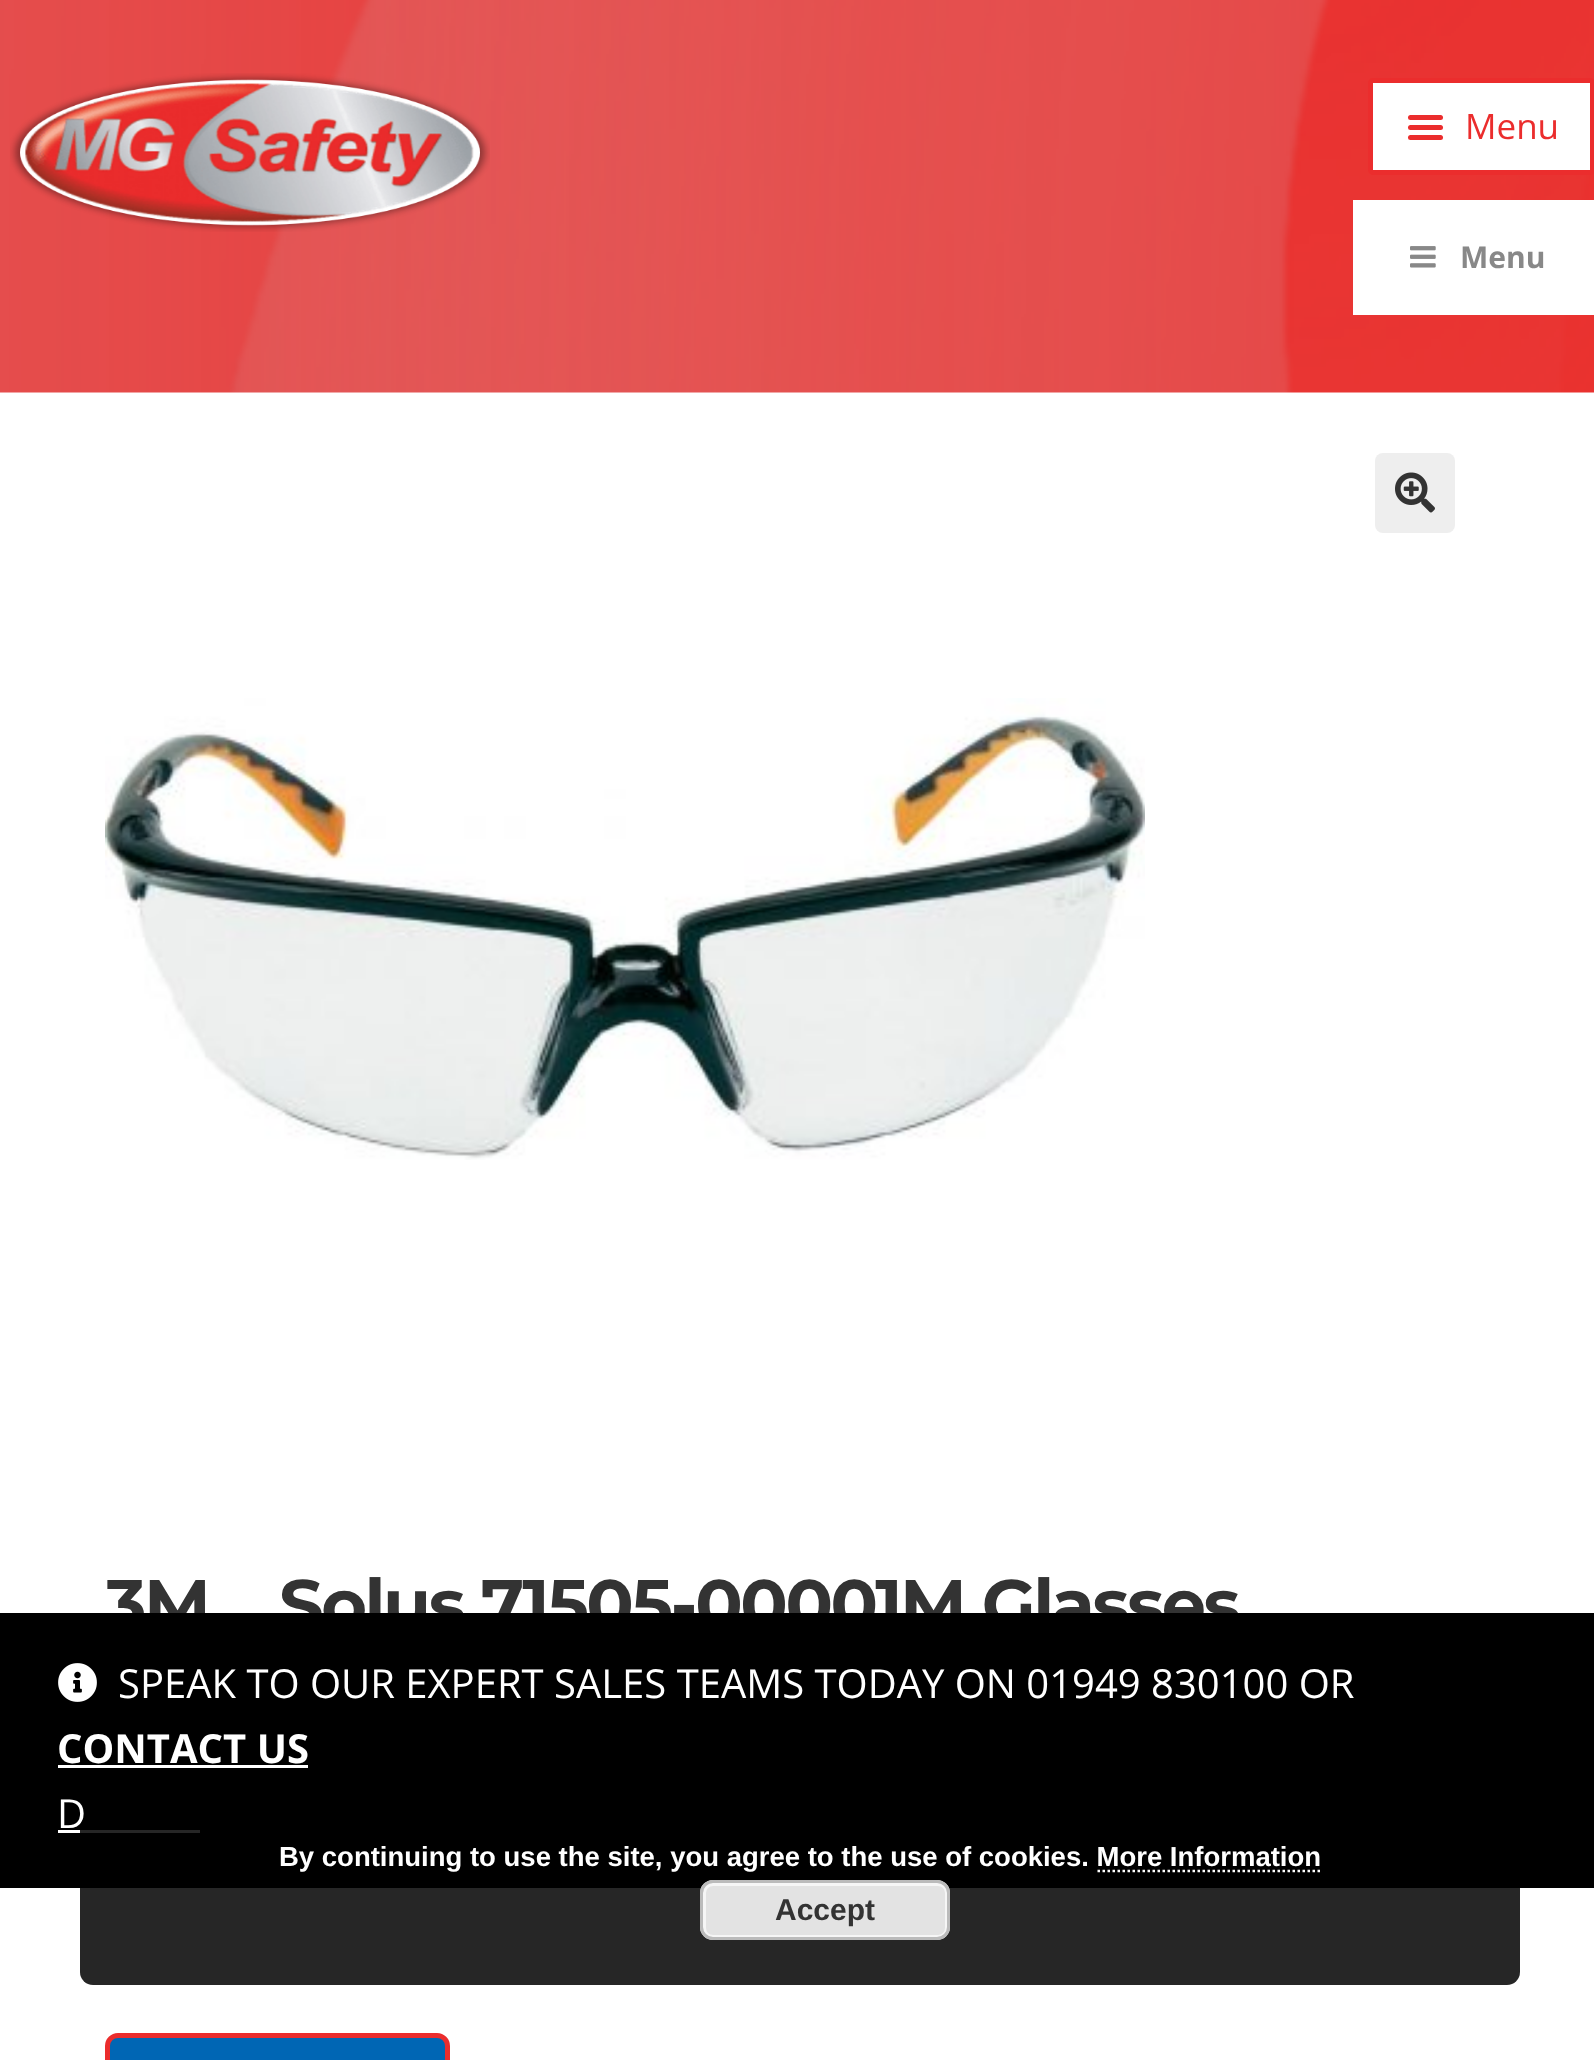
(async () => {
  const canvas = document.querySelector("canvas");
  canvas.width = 1594;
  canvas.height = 2060;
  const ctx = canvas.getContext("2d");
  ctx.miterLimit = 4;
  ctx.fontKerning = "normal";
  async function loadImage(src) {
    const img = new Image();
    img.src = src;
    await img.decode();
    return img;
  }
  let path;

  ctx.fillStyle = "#ffffff";
  ctx.fillRect(0, 0, 1594, 2060);
  ctx.drawImage(await loadImage("img/1.png"), 0, 0, 1594, 393);
  ctx.drawImage(await loadImage("img/2.png"), 10, 73, 480, 159);
  ctx.beginPath();
  ctx.roundRect(1370.5, 80.5, 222, 92, 2.5);
  ctx.fill();
  ctx.strokeStyle = "#eb2d2d";
  ctx.lineWidth = 5;
  ctx.stroke();
  ctx.fillStyle = "#eb2d2d";
  ctx.beginPath();
  ctx.roundRect(1408, 115, 35, 5, 2.5);
  ctx.fill();
  ctx.beginPath();
  ctx.roundRect(1408, 125, 35, 5, 2.5);
  ctx.fill();
  ctx.beginPath();
  ctx.roundRect(1408, 135, 35, 5, 2.5);
  ctx.fill();
  ctx.fillStyle = "#ffffff";
  ctx.fillRect(1353, 200, 241, 115);
  ctx.drawImage(await loadImage("img/3.png"), 1410, 246, 26, 22);
  ctx.fillStyle = "#eeeeee";
  ctx.beginPath();
  ctx.roundRect(1375, 453, 80, 80, 8);
  ctx.fill();
  ctx.drawImage(await loadImage("img/4.png"), 1395, 472, 40, 41);
  ctx.drawImage(await loadImage("img/5.png"), 105, 698, 1040, 462);
  ctx.fillStyle = "#0066b4";
  ctx.beginPath();
  ctx.roundRect(107.5, 2035.5, 340, 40, 10.5);
  ctx.fill();
  ctx.stroke();
  ctx.font = "35px Open Sans";
  ctx.fillStyle = "#eb2d2d";
  ctx.fillText("Menu", 1465, 139);
  ctx.font = "bold 30px Open Sans";
  ctx.fillStyle = "#888888";
  ctx.fillText("Menu", 1460, 268);
  ctx.letterSpacing = "-2.5px";
  ctx.font = "100 70px Montserrat";
  ctx.fillStyle = "#333333";
  ctx.fillText("3M", 105, 1629);
  ctx.fillText("Solus 71505-00001M Glasses", 279, 1629);
  ctx.fillStyle = "#000000";
  ctx.fillRect(0, 1613, 1594, 275);
  ctx.drawImage(await loadImage("img/6.png"), 58, 1663, 39, 39);
  ctx.letterSpacing = "0px";
  ctx.font = "40px Open Sans";
  ctx.fillStyle = "#ffffff";
  ctx.fillText("SPEAK TO OUR EXPERT SALES TEAMS TODAY ON 01949 830100 OR", 118, 1698);
  ctx.font = "bold 40px Open Sans";
  ctx.fillText("CONTACT US", 57, 1763);
  ctx.fillRect(58, 1765, 250, 3);
  ctx.font = "40px Open Sans";
  ctx.fillText("D", 57, 1828);
  ctx.fillRect(58, 1830, 142, 3);
  ctx.fillStyle = "rgba(0, 0, 0, 0.85)";
  ctx.beginPath();
  ctx.roundRect(80, 1815, 1440, 170, 13);
  ctx.fill();
  ctx.font = "bold 27.5px Liberation Sans";
  ctx.fillStyle = "#ffffff";
  ctx.fillText("By continuing to use the site, you agree to the use of cookies. More Information", 279, 1866);
  path = new Path2D("M1097.5 1871H1320");
  ctx.strokeStyle = "#ffffff";
  ctx.lineWidth = 2.5;
  ctx.setLineDash([2.5, 2.5]);
  ctx.stroke(path);
  ctx.fillStyle = "#e3e3e3";
  ctx.beginPath();
  ctx.roundRect(700, 1880, 250, 60, 13);
  ctx.fill();
  ctx.beginPath();
  ctx.roundRect(704.5, 1884.5, 242, 52, 8.5);
  ctx.strokeStyle = "#f6f6f6";
  ctx.lineWidth = 3;
  ctx.setLineDash([]);
  ctx.stroke();
  ctx.beginPath();
  ctx.roundRect(701.5, 1881.5, 247, 57, 11.5);
  ctx.strokeStyle = "#bbbbbb";
  ctx.stroke();
  ctx.font = "bold 30px Liberation Sans";
  ctx.fillStyle = "#333333";
  ctx.fillText("Accept", 775, 1920);
})();
